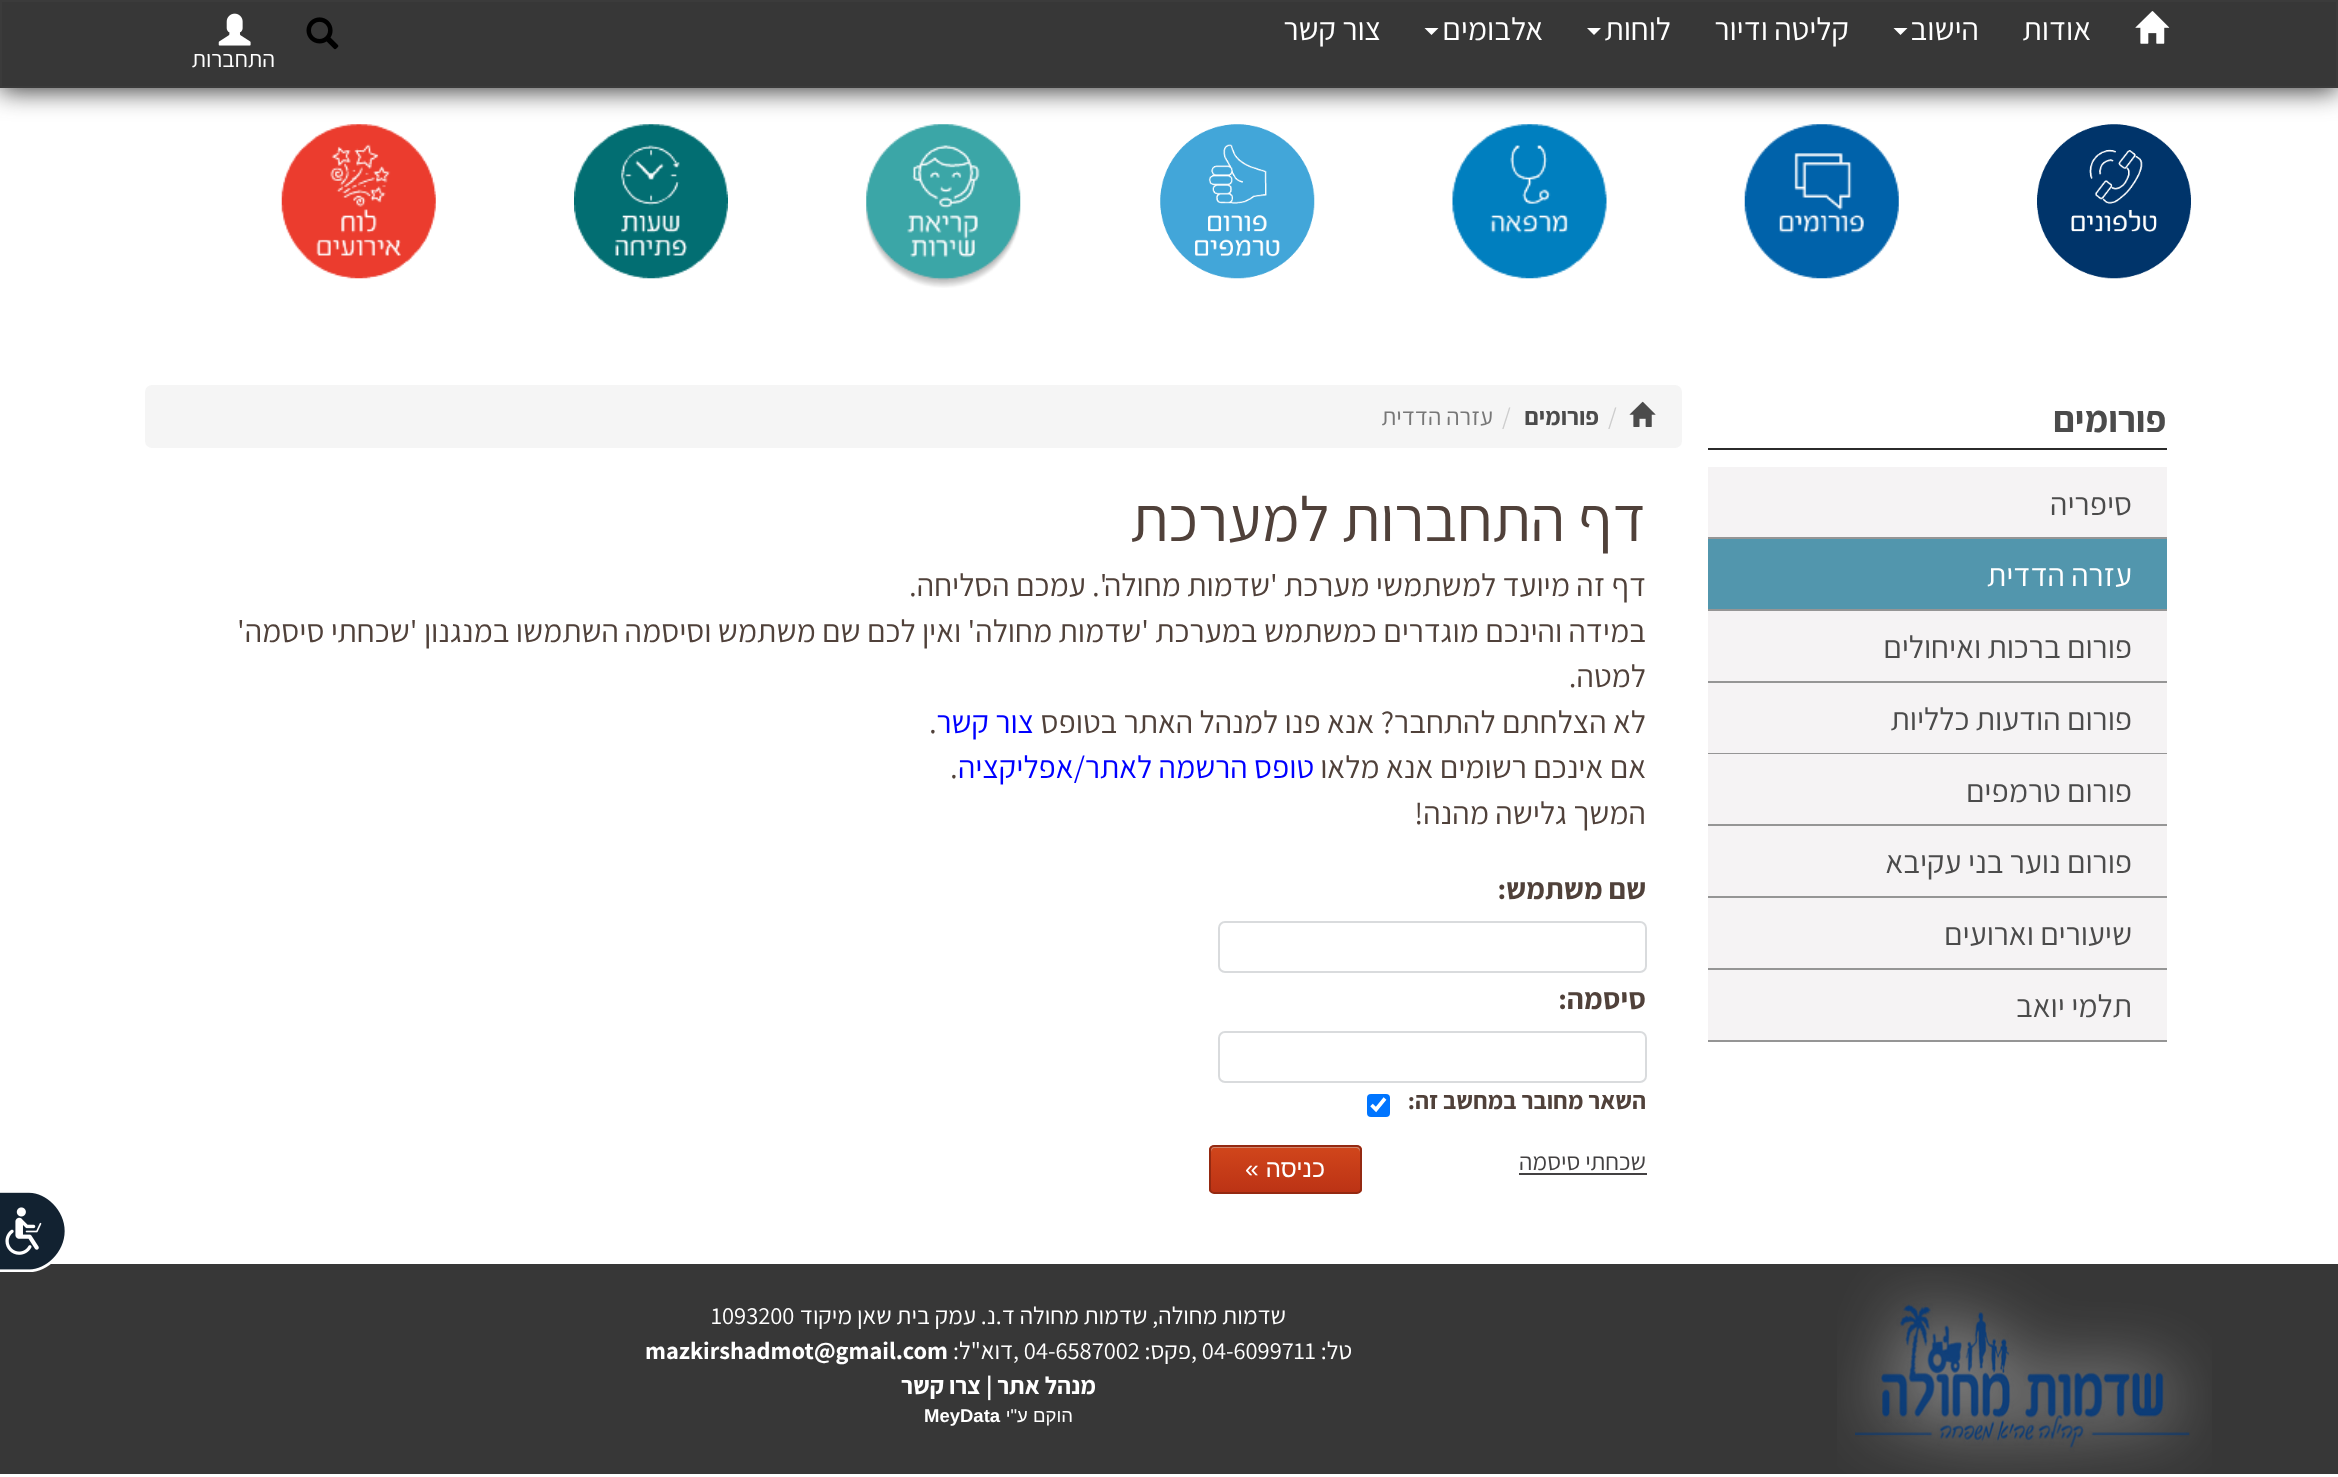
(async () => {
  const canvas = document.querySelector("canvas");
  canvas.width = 2338;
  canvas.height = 1477;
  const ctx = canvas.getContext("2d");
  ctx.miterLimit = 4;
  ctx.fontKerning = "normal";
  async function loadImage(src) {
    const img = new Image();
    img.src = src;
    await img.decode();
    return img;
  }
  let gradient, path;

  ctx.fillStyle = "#ffffff";
  ctx.fillRect(0, 0, 2338, 1477);
  ctx.drawImage(await loadImage("img/4.png"), 2037, 124, 154, 155);
  ctx.drawImage(await loadImage("img/5.png"), 1744, 124, 155, 155);
  ctx.drawImage(await loadImage("img/6.png"), 1452, 124, 155, 155);
  ctx.drawImage(await loadImage("img/7.png"), 1160, 124, 155, 155);
  ctx.drawImage(await loadImage("img/8.png"), 866, 124, 155, 164);
  ctx.drawImage(await loadImage("img/9.png"), 574, 124, 154, 155);
  ctx.drawImage(await loadImage("img/10.png"), 281, 124, 155, 155);
  ctx.fillStyle = "#3b3b3b";
  ctx.filter = "blur(13px)";
  ctx.beginPath();
  ctx.rect(0, 4, 2338, 87);
  ctx.fill();
  ctx.filter = "none";
  ctx.fillStyle = "#373737";
  ctx.beginPath();
  ctx.rect(1, 1, 2336, 86);
  ctx.fill();
  ctx.strokeStyle = "#3b3b3b";
  ctx.lineWidth = 2;
  ctx.stroke();
  ctx.drawImage(await loadImage("img/1.png"), 2135, 11, 35, 33);
  ctx.fillStyle = "#ffffff";
  path = new Path2D("M1893.5 28H1907.5L1900.5 35Z");
  ctx.fill(path);
  path = new Path2D("M1587 28H1601L1594 35Z");
  ctx.fill(path);
  path = new Path2D("M1424.5 28H1438.5L1431.5 35Z");
  ctx.fill(path);
  ctx.drawImage(await loadImage("img/2.png"), 306, 17, 33, 33);
  ctx.drawImage(await loadImage("img/3.png"), 218, 13, 33, 33);
  for (const [x, y, w, h, color] of [
    [1708, 448, 459, 2, "#2b2b2b"],
    [1708, 467, 459, 70, "#f5f3f4"],
    [1708, 537, 459, 2, "#959595"],
    [1708, 609, 459, 2, "#959595"],
    [1708, 539, 459, 70, "#5296ad"],
    [1708, 611, 459, 70, "#f5f3f4"],
    [1708, 681, 459, 2, "#959595"],
    [1708, 683, 459, 70, "#f5f3f4"],
    [1708, 753, 459, 1, "#959595"],
    [1708, 754, 459, 70, "#f5f3f4"],
    [1708, 824, 459, 2, "#959595"],
    [1708, 826, 459, 70, "#f5f3f4"],
    [1708, 896, 459, 2, "#959595"],
    [1708, 898, 459, 70, "#f5f3f4"],
    [1708, 968, 459, 2, "#959595"],
    [1708, 970, 459, 70, "#f5f3f4"],
    [1708, 1040, 459, 2, "#959595"],
  ]) {
    ctx.fillStyle = color;
    ctx.fillRect(x, y, w, h);
  }
  ctx.fillStyle = "#f5f5f5";
  ctx.beginPath();
  ctx.roundRect(145, 385, 1537, 63, 7);
  ctx.fill();
  ctx.drawImage(await loadImage("img/11.png"), 1629, 401, 27, 26);
  ctx.beginPath();
  ctx.roundRect(1219, 922, 427, 50, 6);
  ctx.strokeStyle = "#d9dbdd";
  ctx.stroke();
  ctx.beginPath();
  ctx.roundRect(1219, 1032, 427, 50, 6);
  ctx.stroke();
  ctx.fillStyle = "#0075ff";
  ctx.beginPath();
  ctx.roundRect(1367, 1094, 23, 23, 4);
  ctx.fill();
  path = new Path2D("M1371.5 1105L1376 1109.5L1385 1098.5");
  ctx.strokeStyle = "#ffffff";
  ctx.lineWidth = 3.6;
  ctx.stroke(path);
  ctx.fillStyle = "#434142";
  ctx.fillRect(1519, 1173, 128, 2);
  ctx.save();
  ctx.beginPath();
  ctx.roundRect(1209, 1145, 153, 49, 5);
  ctx.clip();
  gradient = ctx.createLinearGradient(1285, 1146, 1285, 1192);
  gradient.addColorStop(0.05, "#d0451b");
  gradient.addColorStop(1, "#bc3315");
  ctx.fillStyle = gradient;
  ctx.fillRect(1209, 1146, 153, 46);
  ctx.restore();
  ctx.fillStyle = "#cf866c";
  path = new Path2D("M1214 1148H1356C1358 1148 1360 1150 1360 1152V1150C1360 1148 1358 1146 1356 1146H1215C1213 1146 1211 1148 1211 1150V1152C1211 1150 1213 1148 1214 1148Z");
  ctx.fill(path);
  ctx.beginPath();
  ctx.roundRect(1210, 1146, 151, 47, 4);
  ctx.strokeStyle = "#942911";
  ctx.lineWidth = 2;
  ctx.stroke();
  ctx.fillStyle = "#373737";
  ctx.fillRect(0, 1264, 2338, 210);
  ctx.drawImage(await loadImage("img/12.png"), 0, 1192, 65, 80);
  ctx.drawImage(await loadImage("img/13.png"), 1837, 1267, 375, 207);
  ctx.direction = "rtl";
  ctx.font = "31.85px Assistant";
  ctx.fillStyle = "#ffffff";
  for (const [text, x, y] of [
    ["אודות", 2091, 40],
    ["הישוב", 1979, 40],
    ["קליטה ודיור", 1849, 40],
    ["לוחות", 1671, 40],
    ["אלבומים", 1543, 40],
    ["צור קשר", 1381, 40],
  ]) {
    ctx.fillText(text, x, y);
  }
  ctx.font = "23.5px Assistant";
  ctx.fillText("התחברות", 275, 67);
  ctx.font = "bold 37px Assistant";
  ctx.fillStyle = "#4b4b4b";
  ctx.fillText("פורומים", 2166, 432);
  ctx.font = "31.85px Assistant";
  ctx.fillText("סיפריה", 2132, 515);
  ctx.fillStyle = "#ffffff";
  ctx.fillText("עזרה הדדית", 2132, 586);
  ctx.fillStyle = "#4b4b4b";
  for (const [text, x, y] of [
    ["פורום ברכות ואיחולים", 2132, 658],
    ["פורום הודעות כלליות", 2132, 730],
    ["פורום טרמפים", 2132, 802],
    ["פורום נוער בני עקיבא", 2132, 873],
    ["שיעורים וארועים", 2132, 945],
    ["תלמי יואב", 2132, 1017],
  ]) {
    ctx.fillText(text, x, y);
  }
  ctx.direction = "ltr";
  ctx.font = "24.5px Assistant";
  ctx.fillStyle = "#cccccc";
  ctx.fillText("/", 1608, 425);
  ctx.direction = "rtl";
  ctx.font = "bold 24.5px Assistant";
  ctx.fillStyle = "#4b4b4b";
  ctx.fillText("פורומים", 1599, 425);
  ctx.direction = "ltr";
  ctx.font = "24.5px Assistant";
  ctx.fillStyle = "#cccccc";
  ctx.fillText("/", 1502, 425);
  ctx.direction = "rtl";
  ctx.fillStyle = "#777777";
  ctx.fillText("עזרה הדדית", 1493, 425);
  ctx.font = "63px Assistant";
  ctx.fillStyle = "#50413a";
  ctx.fillText("דף התחברות למערכת", 1646, 541);
  ctx.font = "31.85px Assistant";
  for (const [text, x, y] of [
    ["דף זה מיועד למשתמשי מערכת 'שדמות מחולה'. עמכם הסליחה.", 1646, 596],
    ["במידה והינכם מוגדרים כמשתמש במערכת 'שדמות מחולה' ואין לכם שם משתמש וסיסמה", 1646, 642],
    ["השתמשו במנגנון 'שכחתי סיסמה'", 619, 642],
    ["למטה.", 1646, 687],
    ["לא הצלחתם להתחבר? אנא פנו למנהל האתר בטופס", 1646, 733],
  ]) {
    ctx.fillText(text, x, y);
  }
  ctx.fillStyle = "#0000ff";
  ctx.fillText("צור קשר", 1034, 733);
  ctx.direction = "ltr";
  ctx.fillStyle = "#50413a";
  ctx.fillText(".", 929, 733);
  ctx.direction = "rtl";
  ctx.fillText("אם אינכם רשומים אנא מלאו", 1646, 778);
  ctx.fillStyle = "#0000ff";
  ctx.fillText("טופס הרשמה לאתר/אפליקציה", 1314, 778);
  ctx.direction = "ltr";
  ctx.fillStyle = "#50413a";
  ctx.fillText(".", 950, 778);
  ctx.direction = "rtl";
  ctx.fillText("המשך גלישה מהנה!", 1646, 824);
  ctx.font = "bold 29.5px Assistant";
  ctx.fillText("שם משתמש:", 1646, 899);
  ctx.fillText("סיסמה:", 1646, 1009);
  ctx.font = "bold 24.5px Assistant";
  ctx.fillText("השאר מחובר במחשב זה:", 1646, 1109);
  ctx.font = "24.5px Assistant";
  ctx.fillStyle = "#434142";
  ctx.fillText("שכחתי סיסמה", 1646, 1170);
  ctx.font = "24.5px Liberation Sans";
  ctx.fillStyle = "#ffffff";
  ctx.fillText("כניסה »", 1325, 1177);
  ctx.font = "24.5px Assistant";
  ctx.fillText("שדמות מחולה, שדמות מחולה ד.נ. עמק בית שאן מיקוד", 1286, 1324);
  ctx.direction = "ltr";
  ctx.fillText("1093200", 711, 1324);
  ctx.direction = "rtl";
  ctx.fillText("טל:", 1352, 1359);
  ctx.direction = "ltr";
  ctx.fillText(", 04-6099711", 1191, 1359);
  ctx.direction = "rtl";
  ctx.fillText("פקס:", 1191, 1359);
  ctx.direction = "ltr";
  ctx.fillText(", 04-6587002", 1013, 1359);
  ctx.direction = "rtl";
  ctx.fillText("דוא\"ל:", 1013, 1359);
  ctx.direction = "ltr";
  ctx.font = "bold 24.5px Assistant";
  ctx.fillText("mazkirshadmot@gmail.com", 645, 1359);
  ctx.direction = "rtl";
  ctx.fillText("מנהל אתר", 1096, 1394);
  ctx.direction = "ltr";
  ctx.fillText("|", 986, 1394);
  ctx.direction = "rtl";
  ctx.fillText("צרו קשר", 981, 1394);
  ctx.font = "18.5px Liberation Sans";
  ctx.fillText("הוקם ע\"י", 1073, 1422);
  ctx.direction = "ltr";
  ctx.font = "bold 18.5px Liberation Sans";
  ctx.fillText("MeyData", 924, 1422);
})();
